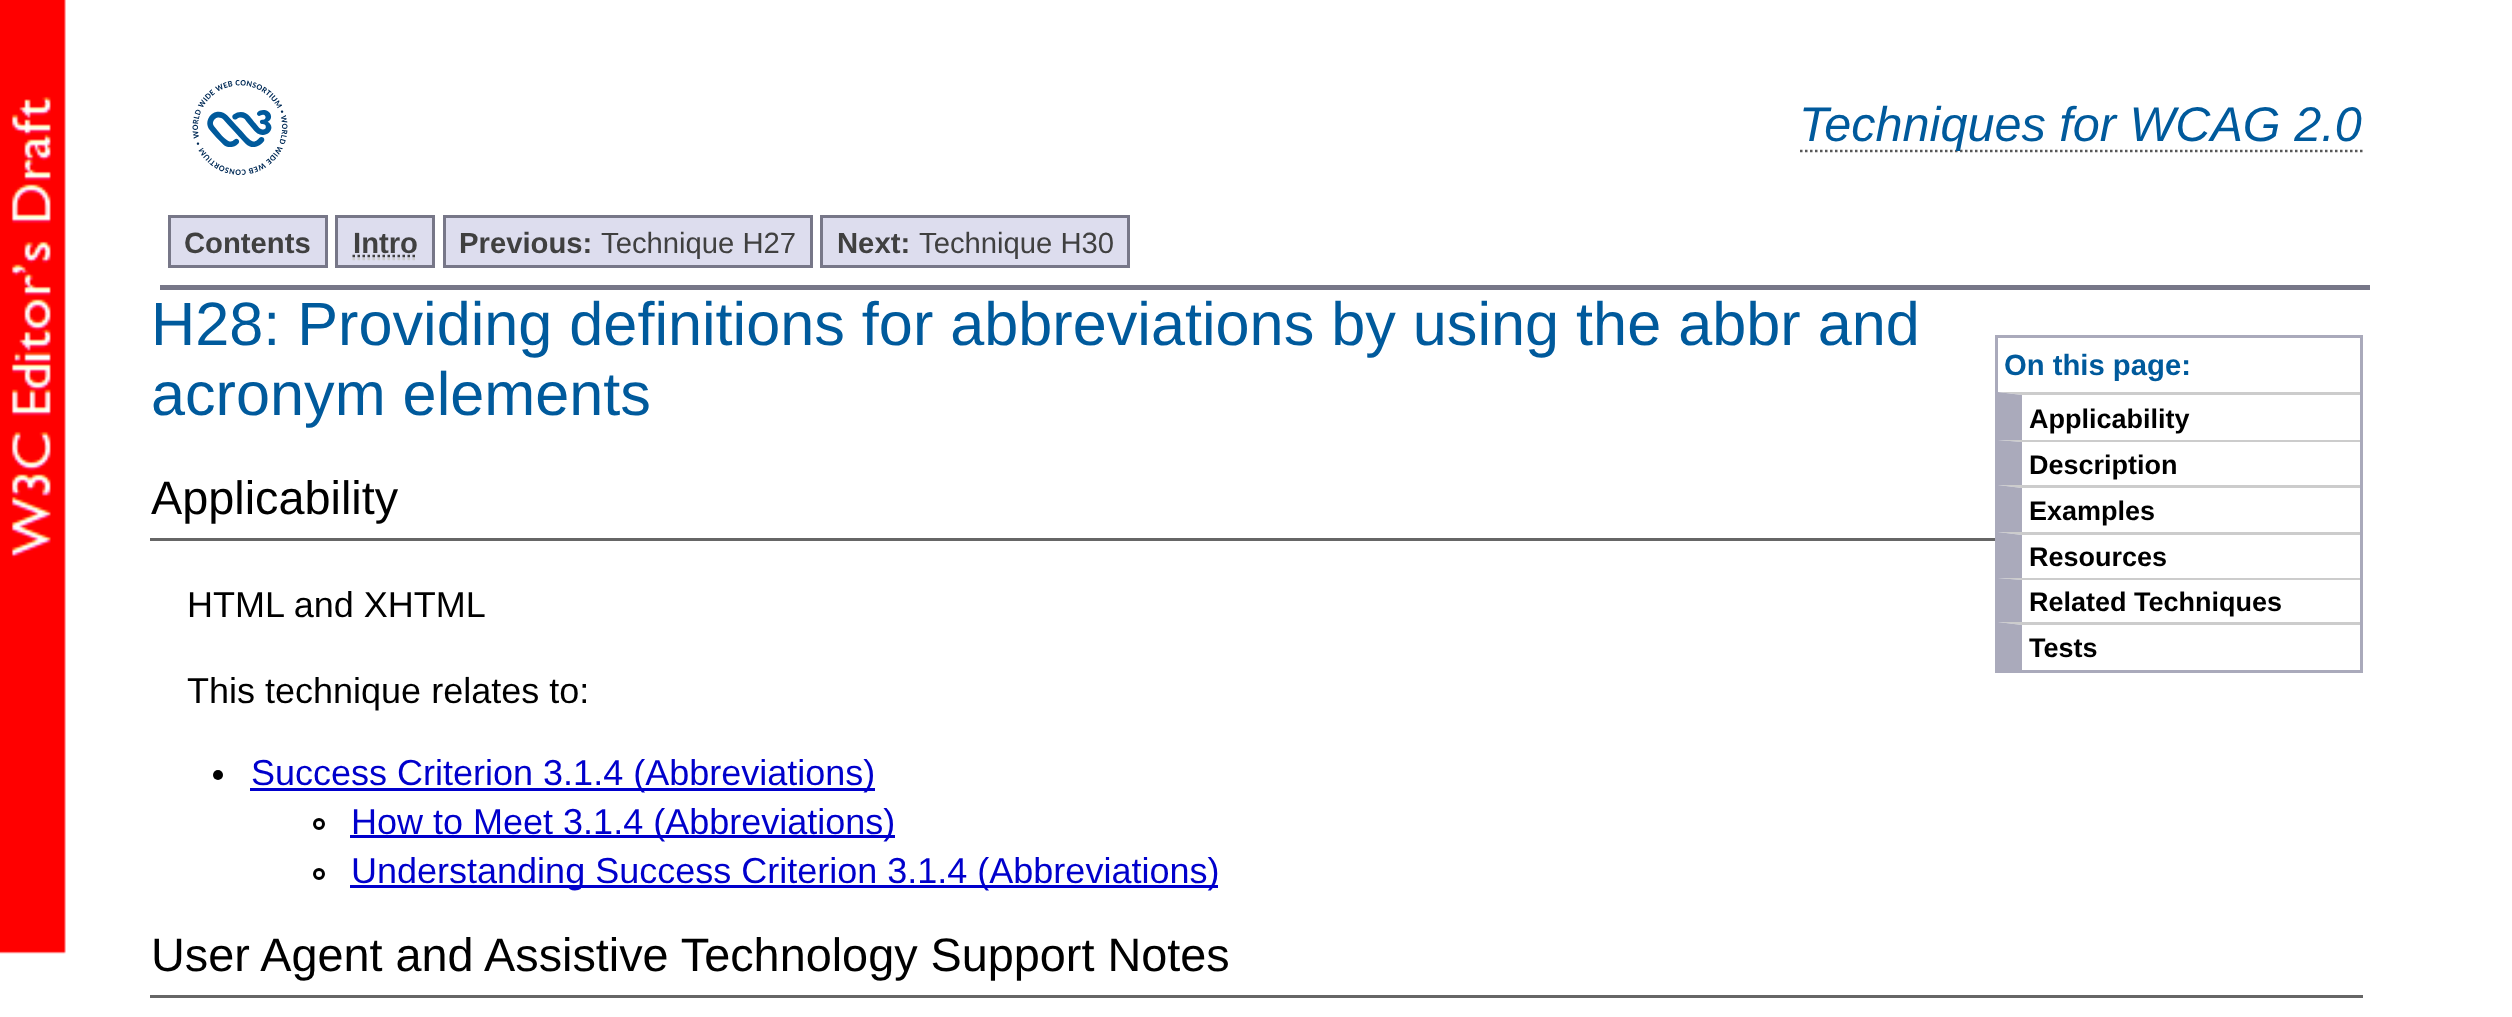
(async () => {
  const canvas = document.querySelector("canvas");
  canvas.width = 2512;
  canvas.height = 1017;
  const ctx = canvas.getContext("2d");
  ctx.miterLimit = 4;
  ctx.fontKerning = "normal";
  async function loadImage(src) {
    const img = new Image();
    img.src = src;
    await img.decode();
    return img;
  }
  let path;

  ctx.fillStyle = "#ffffff";
  ctx.fillRect(0, 0, 2512, 1017);
  ctx.drawImage(await loadImage("img/1.png"), 0, 0, 66, 954);
  ctx.drawImage(await loadImage("img/2.png"), 192, 80, 96, 95);
  path = new Path2D("M1800 151H2362.5");
  ctx.strokeStyle = "#585858";
  ctx.lineWidth = 2.5;
  ctx.setLineDash([2.5, 2.5]);
  ctx.stroke(path);
  ctx.fillStyle = "#777788";
  ctx.fillRect(160, 285, 2210, 5);
  ctx.fillStyle = "#ddddee";
  ctx.beginPath();
  ctx.rect(169.5, 216.5, 157, 50);
  ctx.fill();
  ctx.strokeStyle = "#777788";
  ctx.lineWidth = 3;
  ctx.setLineDash([]);
  ctx.stroke();
  ctx.beginPath();
  ctx.rect(336.5, 216.5, 97, 50);
  ctx.fill();
  ctx.stroke();
  path = new Path2D("M352.5 259H417.5");
  ctx.strokeStyle = "#cccccc";
  ctx.lineWidth = 2.5;
  ctx.setLineDash([2.5, 2.5]);
  ctx.stroke(path);
  path = new Path2D("M352.5 256H417.5");
  ctx.strokeStyle = "#404040";
  ctx.stroke(path);
  ctx.beginPath();
  ctx.rect(444.5, 216.5, 367, 50);
  ctx.fill();
  ctx.strokeStyle = "#777788";
  ctx.lineWidth = 3;
  ctx.setLineDash([]);
  ctx.stroke();
  ctx.beginPath();
  ctx.rect(821.5, 216.5, 307, 50);
  ctx.fill();
  ctx.stroke();
  ctx.strokeStyle = "#aaaabb";
  ctx.strokeRect(1996.5, 336.5, 365, 335);
  ctx.fillStyle = "#cccccc";
  path = new Path2D("M1998 392H2360V395H2022Z");
  ctx.fill(path);
  ctx.fillStyle = "#aaaabb";
  path = new Path2D("M1998 440V392L2022 395V440Z");
  ctx.fill(path);
  ctx.fillStyle = "#cccccc";
  path = new Path2D("M1998 440H2360V442H2022Z");
  ctx.fill(path);
  ctx.fillStyle = "#aaaabb";
  path = new Path2D("M1998 485V440L2022 442V485Z");
  ctx.fill(path);
  ctx.fillStyle = "#cccccc";
  path = new Path2D("M1998 485H2360V488H2022Z");
  ctx.fill(path);
  ctx.fillStyle = "#aaaabb";
  path = new Path2D("M1998 532V485L2022 488V532Z");
  ctx.fill(path);
  ctx.fillStyle = "#cccccc";
  path = new Path2D("M1998 532H2360V535H2022Z");
  ctx.fill(path);
  ctx.fillStyle = "#aaaabb";
  path = new Path2D("M1998 578V532L2022 535V578Z");
  ctx.fill(path);
  ctx.fillStyle = "#cccccc";
  path = new Path2D("M1998 578H2360V580H2022Z");
  ctx.fill(path);
  ctx.fillStyle = "#aaaabb";
  path = new Path2D("M1998 622V578L2022 580V622Z");
  ctx.fill(path);
  ctx.fillStyle = "#cccccc";
  path = new Path2D("M1998 622H2360V625H2022Z");
  ctx.fill(path);
  ctx.fillStyle = "#aaaabb";
  path = new Path2D("M1998 670V622L2022 625V670Z");
  ctx.fill(path);
  ctx.fillStyle = "#666666";
  ctx.fillRect(150, 538, 1845, 3);
  ctx.fillStyle = "#000000";
  ctx.beginPath();
  ctx.arc(218, 775, 5, 0, Math.PI * 2);
  ctx.fill();
  ctx.fillStyle = "#0000cc";
  ctx.fillRect(250, 788, 625, 3);
  ctx.beginPath();
  ctx.arc(319, 824, 4.5, 0, Math.PI * 2);
  ctx.strokeStyle = "#000000";
  ctx.stroke();
  ctx.fillRect(350, 835, 545, 3);
  ctx.beginPath();
  ctx.arc(319, 874, 4.5, 0, Math.PI * 2);
  ctx.stroke();
  ctx.fillRect(350, 885, 868, 3);
  ctx.fillStyle = "#666666";
  ctx.fillRect(150, 995, 2213, 3);
  ctx.font = "italic 48.6px Liberation Sans";
  ctx.fillStyle = "#005a9c";
  ctx.fillText("Techniques for WCAG 2.0", 1799, 141);
  ctx.font = "bold 29.25px Liberation Sans";
  ctx.fillStyle = "#404040";
  for (const [text, x, y] of [
    ["Contents", 184, 253],
    ["Intro", 353, 253],
    ["Previous:", 459, 253],
  ]) {
    ctx.fillText(text, x, y);
  }
  ctx.font = "29.25px Liberation Sans";
  ctx.fillText("Technique H27", 601, 253);
  ctx.font = "bold 29.25px Liberation Sans";
  ctx.fillText("Next:", 837, 253);
  ctx.font = "29.25px Liberation Sans";
  ctx.fillText("Technique H30", 919, 253);
  ctx.font = "61.2px Liberation Sans";
  ctx.fillStyle = "#005a9c";
  ctx.fillText("H28: Providing definitions for abbreviations by using the abbr and", 151, 345);
  ctx.fillText("acronym elements", 151, 415);
  ctx.font = "bold 29.25px Liberation Sans";
  ctx.fillText("On this page:", 2004, 375);
  ctx.font = "bold 27px Liberation Sans";
  ctx.fillStyle = "#000000";
  for (const [text, x, y] of [
    ["Applicability", 2029, 428],
    ["Description", 2029, 474],
    ["Examples", 2029, 520],
    ["Resources", 2029, 566],
    ["Related Techniques", 2029, 611],
    ["Tests", 2029, 657],
  ]) {
    ctx.fillText(text, x, y);
  }
  ctx.font = "46.8px Liberation Sans";
  ctx.fillText("Applicability", 151, 514);
  ctx.font = "36px Liberation Sans";
  ctx.fillText("HTML and XHTML", 187, 617);
  ctx.fillText("This technique relates to:", 187, 703);
  ctx.fillStyle = "#0000cc";
  for (const [text, x, y] of [
    ["Success Criterion 3.1.4 (Abbreviations)", 251, 785],
    ["How to Meet 3.1.4 (Abbreviations)", 351, 834],
    ["Understanding Success Criterion 3.1.4 (Abbreviations)", 351, 883],
  ]) {
    ctx.fillText(text, x, y);
  }
  ctx.font = "46.8px Liberation Sans";
  ctx.fillStyle = "#000000";
  ctx.fillText("User Agent and Assistive Technology Support Notes", 151, 971);
})();
